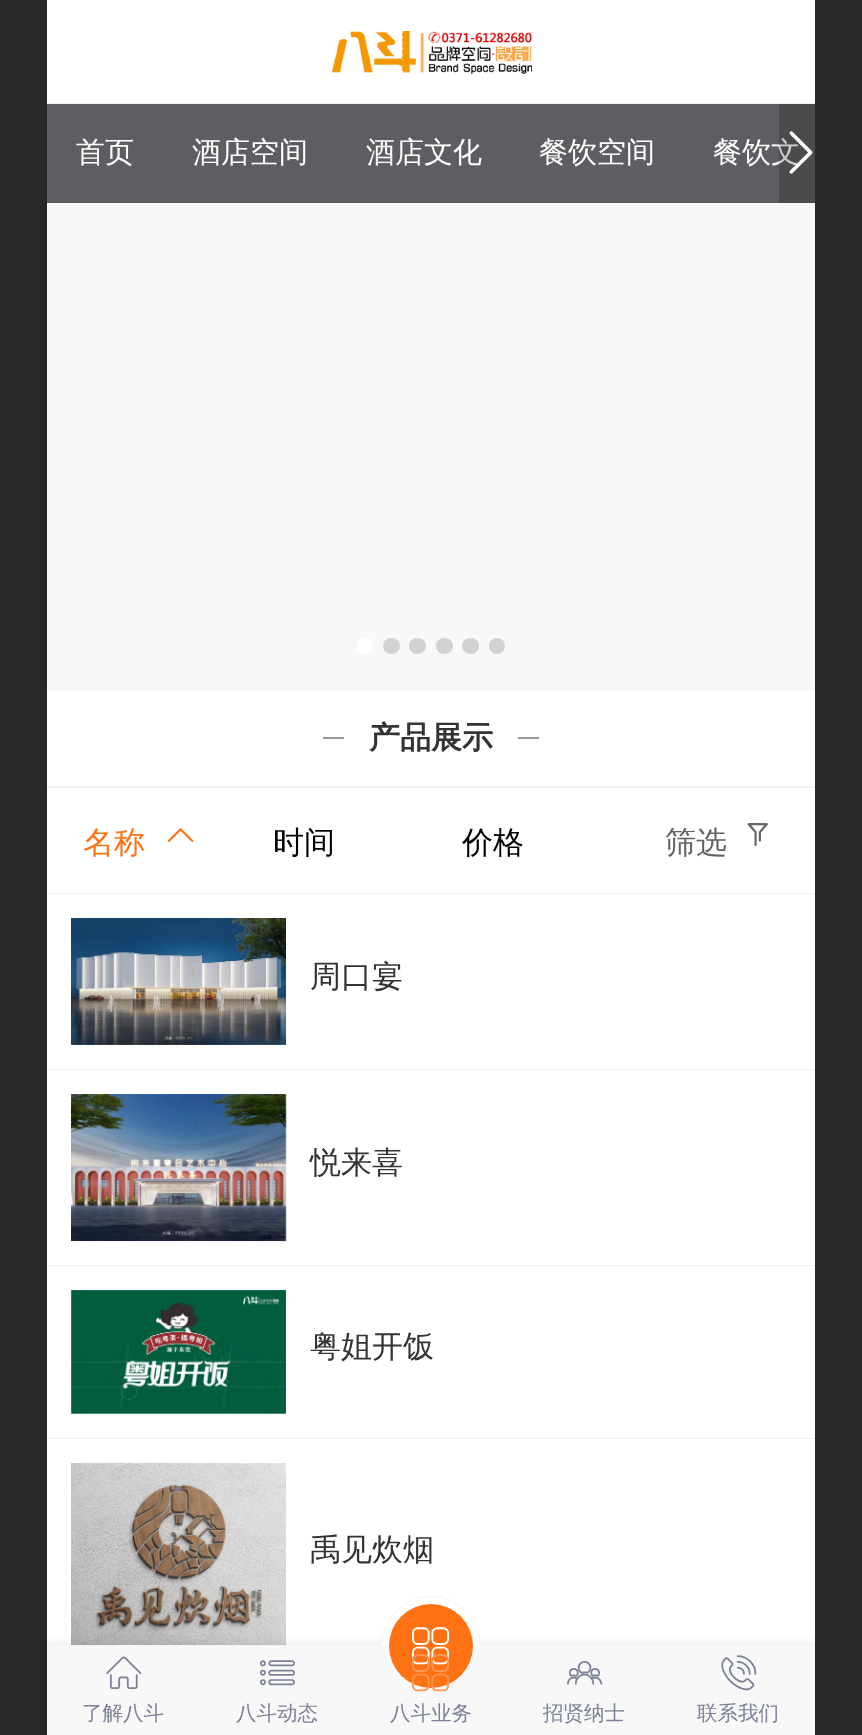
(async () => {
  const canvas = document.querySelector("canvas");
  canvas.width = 862;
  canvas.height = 1735;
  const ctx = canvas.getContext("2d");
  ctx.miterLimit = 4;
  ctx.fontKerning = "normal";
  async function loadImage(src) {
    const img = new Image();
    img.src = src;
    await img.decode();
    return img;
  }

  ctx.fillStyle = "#f8f8f8";
  ctx.fillRect(0, 0, 862, 1735);
  ctx.fillStyle = "#ffffff";
  ctx.fillRect(47, 788, 768, 857);
  ctx.drawImage(await loadImage("img/8.png"), 71, 1463, 215, 182);
  ctx.fillStyle = "rgba(0, 0, 0, 0.1)";
  ctx.filter = "blur(6px)";
  ctx.beginPath();
  ctx.rect(47, 1645, 768, 90);
  ctx.fill();
  ctx.filter = "none";
  for (const [x, y, w, h, color] of [
    [0, 0, 47, 1735, "#282828"],
    [47, 0, 768, 103, "#ffffff"],
    [47, 103, 768, 1, "#eeeeee"],
  ]) {
    ctx.fillStyle = color;
    ctx.fillRect(x, y, w, h);
  }
  ctx.drawImage(await loadImage("img/1.png"), 332, 31, 200, 43);
  ctx.fillStyle = "#5e5e62";
  ctx.fillRect(47, 104, 768, 99);
  ctx.fillStyle = "#ffffff";
  ctx.beginPath();
  ctx.arc(365, 646, 8, 0, Math.PI * 2);
  ctx.fill();
  ctx.fillStyle = "#d2d2d2";
  ctx.beginPath();
  ctx.roundRect(383, 638, 17, 16, 8);
  ctx.fill();
  ctx.beginPath();
  ctx.roundRect(409, 638, 17, 16, 8);
  ctx.fill();
  ctx.beginPath();
  ctx.roundRect(436, 638, 17, 16, 8);
  ctx.fill();
  ctx.beginPath();
  ctx.roundRect(462, 638, 17, 16, 8);
  ctx.fill();
  ctx.beginPath();
  ctx.arc(497, 646, 8, 0, Math.PI * 2);
  ctx.fill();
  for (const [x, y, w, h, color] of [
    [47, 691, 768, 95, "#ffffff"],
    [47, 786, 768, 2, "#f3f3f3"],
    [323, 737, 21, 2, "#999999"],
    [518, 737, 21, 2, "#999999"],
  ]) {
    ctx.fillStyle = color;
    ctx.fillRect(x, y, w, h);
  }
  ctx.drawImage(await loadImage("img/3.png"), 167, 828, 27, 14);
  ctx.drawImage(await loadImage("img/4.png"), 747, 823, 21, 23);
  ctx.fillStyle = "#f0f0f0";
  ctx.fillRect(47, 893, 768, 1);
  ctx.drawImage(await loadImage("img/5.png"), 71, 918, 215, 127);
  ctx.fillRect(47, 1069, 768, 1);
  ctx.drawImage(await loadImage("img/6.png"), 71, 1094, 216, 148);
  ctx.fillRect(47, 1265, 768, 1);
  ctx.drawImage(await loadImage("img/7.png"), 71, 1290, 215, 124);
  for (const [x, y, w, h, color] of [
    [47, 1438, 768, 1, "#f0f0f0"],
    [47, 1646, 768, 89, "#f8f8f8"],
    [47, 1645, 768, 1, "#f4f4f4"],
  ]) {
    ctx.fillStyle = color;
    ctx.fillRect(x, y, w, h);
  }
  ctx.fillStyle = "#ffffff";
  ctx.beginPath();
  ctx.arc(431, 1646, 49.5, 0, Math.PI * 2);
  ctx.fill();
  ctx.strokeStyle = "#f4f4f4";
  ctx.stroke();
  ctx.fillStyle = "#f8f8f8";
  ctx.fillRect(381, 1646, 100, 50);
  ctx.fillStyle = "#ff7214";
  ctx.beginPath();
  ctx.arc(431, 1646, 42, 0, Math.PI * 2);
  ctx.fill();
  ctx.fillStyle = "#282828";
  ctx.fillRect(815, 0, 47, 1735);
  ctx.font = "500 29px WenQuanYi Zen Hei";
  ctx.fillStyle = "#ffffff";
  for (const [text, x, y] of [
    ["首页", 76, 162],
    ["酒店空间", 192, 162],
    ["酒店文化", 366, 162],
    ["餐饮空间", 539, 162],
    ["餐饮文", 713, 162],
  ]) {
    ctx.fillText(text, x, y);
  }
  ctx.fillStyle = "rgba(0, 0, 0, 0.2)";
  ctx.fillRect(779, 104, 36, 99);
  ctx.drawImage(await loadImage("img/2.png"), 789, 131, 24, 43);
  ctx.font = "bold 31px WenQuanYi Zen Hei";
  ctx.fillStyle = "#333333";
  ctx.fillText("产品展示", 369, 748);
  ctx.font = "500 31px WenQuanYi Zen Hei";
  ctx.fillStyle = "#ff7214";
  ctx.fillText("名称", 83, 853);
  ctx.fillStyle = "#000000";
  ctx.fillText("时间", 273, 853);
  ctx.fillText("价格", 462, 853);
  ctx.fillStyle = "#636363";
  ctx.fillText("筛选", 665, 853);
  ctx.fillStyle = "#333333";
  for (const [text, x, y] of [
    ["周口宴", 310, 987],
    ["悦来喜", 310, 1173],
    ["粤姐开饭", 310, 1357],
    ["禹见炊烟", 310, 1560],
  ]) {
    ctx.fillText(text, x, y);
  }
  ctx.font = "35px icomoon";
  ctx.fillStyle = "#7b8196";
  ctx.fillText("򠡀", 106, 1688);
  ctx.font = "500 20.5px WenQuanYi Zen Hei";
  ctx.fillText("了解八斗", 82, 1720);
  ctx.font = "35px icomoon";
  ctx.fillText("򠡒", 260, 1688);
  ctx.font = "500 20.5px WenQuanYi Zen Hei";
  ctx.fillText("八斗动态", 236, 1720);
  ctx.font = "37px icomoon";
  ctx.fillStyle = "#ffffff";
  ctx.fillText("򠡆", 412, 1662);
  ctx.fillStyle = "#fe9651";
  ctx.fillText("򠡆", 412, 1689);
  ctx.font = "500 20.5px WenQuanYi Zen Hei";
  ctx.fillStyle = "#7b8196";
  ctx.fillText("八斗业务", 390, 1720);
  ctx.font = "35px icomoon";
  ctx.fillText("򠍈", 567, 1688);
  ctx.font = "500 20.5px WenQuanYi Zen Hei";
  ctx.fillText("招贤纳士", 543, 1720);
  ctx.font = "35px icomoon";
  ctx.fillText("򠤉", 721, 1688);
  ctx.font = "500 20.5px WenQuanYi Zen Hei";
  ctx.fillText("联系我们", 697, 1720);
})();
